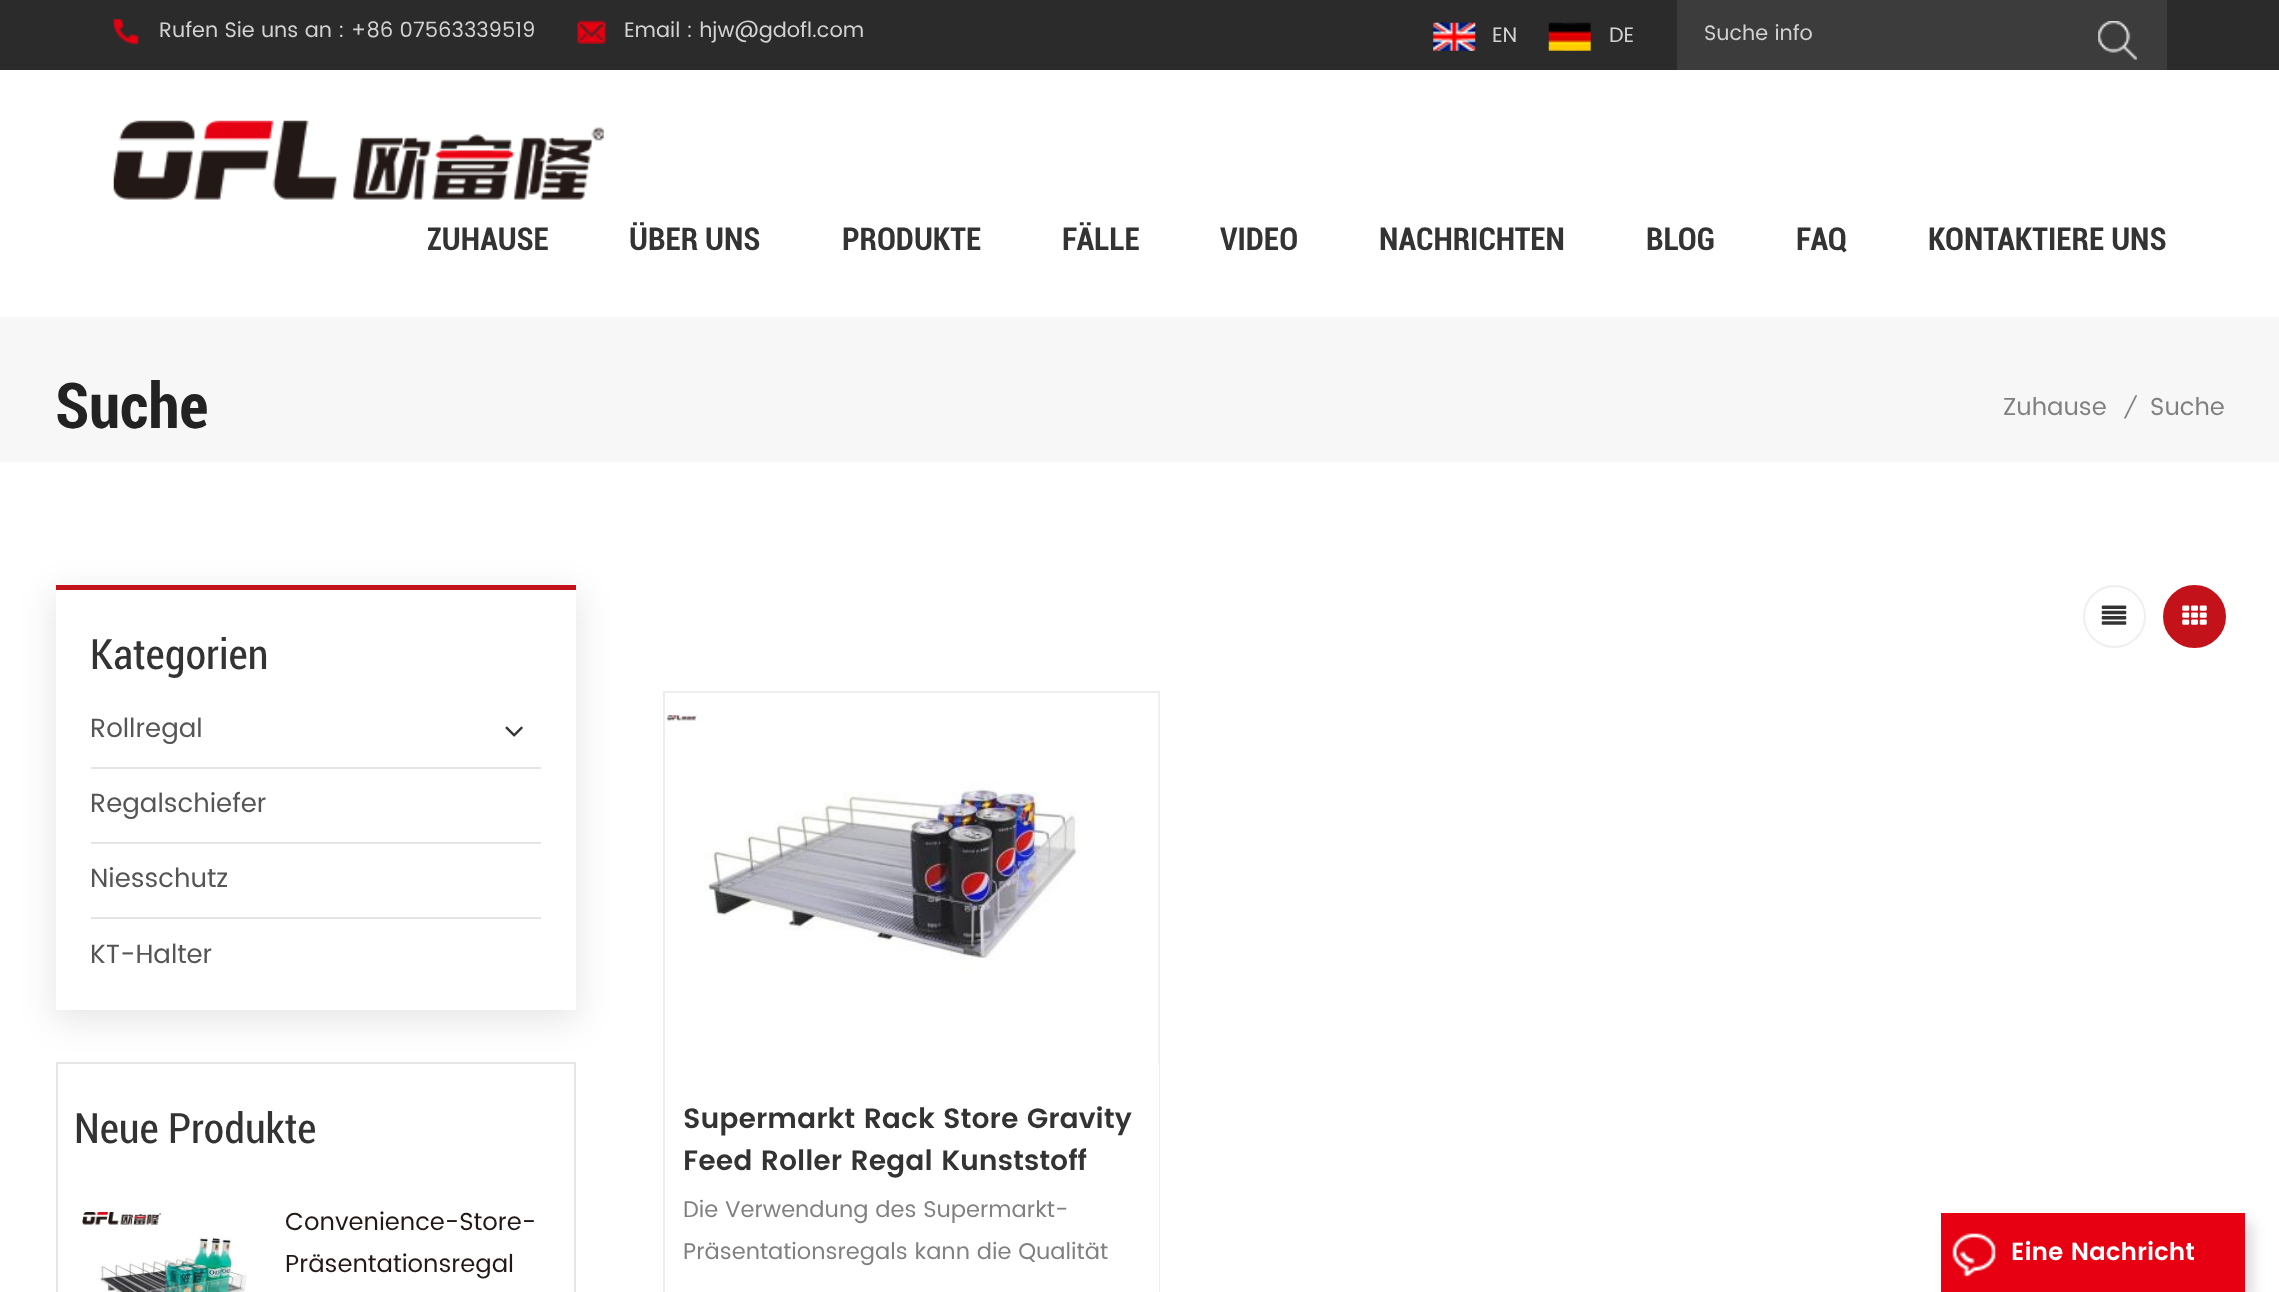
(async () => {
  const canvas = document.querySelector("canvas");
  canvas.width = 2279;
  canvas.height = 1292;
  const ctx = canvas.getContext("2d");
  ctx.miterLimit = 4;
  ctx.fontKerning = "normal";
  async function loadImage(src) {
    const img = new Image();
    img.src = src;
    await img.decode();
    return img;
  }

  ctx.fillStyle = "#ffffff";
  ctx.fillRect(0, 0, 2279, 1292);
  ctx.fillStyle = "#2b2b2b";
  ctx.fillRect(0, 0, 2279, 70);
  ctx.drawImage(await loadImage("img/1.png"), 113, 19, 26, 26);
  ctx.drawImage(await loadImage("img/2.png"), 577, 20, 29, 24);
  ctx.drawImage(await loadImage("img/3.png"), 1433, 22, 43, 29);
  ctx.drawImage(await loadImage("img/4.png"), 1548, 22, 43, 29);
  ctx.fillStyle = "#3c3c3c";
  ctx.fillRect(1677, 0, 490, 70);
  ctx.drawImage(await loadImage("img/5.png"), 2098, 21, 39, 39);
  ctx.drawImage(await loadImage("img/6.png"), 113, 120, 491, 80);
  ctx.fillStyle = "#f7f7f7";
  ctx.fillRect(0, 317, 2279, 145);
  ctx.fillStyle = "rgba(0, 0, 0, 0.1)";
  ctx.filter = "blur(17.5px)";
  ctx.beginPath();
  ctx.rect(54, 592, 524, 428);
  ctx.fill();
  ctx.filter = "none";
  for (const [x, y, w, h, color] of [
    [56, 590, 520, 420, "#ffffff"],
    [56, 585, 520, 5, "#c31219"],
    [91, 767, 450, 2, "#e5e5e5"],
  ]) {
    ctx.fillStyle = color;
    ctx.fillRect(x, y, w, h);
  }
  ctx.drawImage(await loadImage("img/7.png"), 505, 726, 18, 11);
  ctx.fillRect(91, 842, 450, 2);
  ctx.fillRect(91, 917, 450, 2);
  ctx.strokeStyle = "#e5e5e5";
  ctx.lineWidth = 2;
  ctx.strokeRect(57, 1063, 518, 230);
  ctx.drawImage(await loadImage("img/8.png"), 82, 1210, 165, 82);
  ctx.beginPath();
  ctx.arc(2114.5, 616.5, 30.5, 0, Math.PI * 2);
  ctx.strokeStyle = "#efefef";
  ctx.stroke();
  ctx.drawImage(await loadImage("img/9.png"), 2101, 605, 26, 20);
  ctx.fillStyle = "#c31219";
  ctx.beginPath();
  ctx.arc(2194.5, 616.5, 30.5, 0, Math.PI * 2);
  ctx.fill();
  ctx.strokeStyle = "#c31219";
  ctx.stroke();
  ctx.drawImage(await loadImage("img/10.png"), 2182, 605, 25, 20);
  ctx.strokeStyle = "#eeeeee";
  ctx.strokeRect(664, 692, 495, 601);
  ctx.drawImage(await loadImage("img/11.png"), 665, 693, 494, 371);
  ctx.fillStyle = "#ffffff";
  ctx.fillRect(1158, 1064, 1, 228);
  ctx.fillStyle = "rgba(0, 0, 0, 0.15)";
  ctx.filter = "blur(7px)";
  ctx.beginPath();
  ctx.rect(1948, 1222, 304, 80);
  ctx.fill();
  ctx.filter = "none";
  ctx.fillStyle = "#e60012";
  ctx.fillRect(1941, 1213, 304, 79);
  ctx.drawImage(await loadImage("img/12.png"), 1952, 1233, 44, 44);
  ctx.font = "21px Poppins";
  ctx.fillStyle = "#d2d2d2";
  for (const [text, x, y] of [
    ["Rufen Sie uns an : +86 07563339519", 159, 37],
    ["Email : hjw@gdofl.com", 624, 37],
    ["EN", 1492, 42],
    ["DE", 1609, 42],
    ["Suche info", 1704, 40],
  ]) {
    ctx.fillText(text, x, y);
  }
  ctx.font = "bold 31.5px Roboto";
  ctx.fillStyle = "#333333";
  for (const [text, x, y] of [
    ["ZUHAUSE", 427, 250],
    ["ÜBER UNS", 629, 250],
    ["PRODUKTE", 842, 250],
    ["FÄLLE", 1062, 250],
    ["VIDEO", 1220, 250],
    ["NACHRICHTEN", 1379, 250],
    ["BLOG", 1646, 250],
    ["FAQ", 1796, 250],
    ["KONTAKTIERE UNS", 1928, 250],
  ]) {
    ctx.fillText(text, x, y);
  }
  ctx.font = "bold 63px Roboto";
  ctx.fillStyle = "#222222";
  ctx.fillText("Suche", 55, 428);
  ctx.font = "24.5px Poppins";
  ctx.fillStyle = "#808080";
  ctx.fillText("Zuhause", 2003, 415);
  ctx.font = "italic 21px Poppins";
  ctx.fillText("/", 2123, 415);
  ctx.font = "24.5px Poppins";
  ctx.fillText("Suche", 2150, 415);
  ctx.font = "42px Roboto";
  ctx.fillStyle = "#333333";
  ctx.fillText("Kategorien", 90, 669);
  ctx.font = "26.25px Poppins";
  ctx.fillStyle = "#555555";
  for (const [text, x, y] of [
    ["Rollregal", 90, 737],
    ["Regalschiefer", 90, 812],
    ["Niesschutz", 90, 887],
    ["KT-Halter", 90, 963],
  ]) {
    ctx.fillText(text, x, y);
  }
  ctx.font = "42px Roboto";
  ctx.fillStyle = "#333333";
  ctx.fillText("Neue Produkte", 74, 1143);
  ctx.font = "24.5px Poppins";
  ctx.fillStyle = "#231815";
  ctx.fillText("Convenience-Store-", 285, 1230);
  ctx.fillText("Präsentationsregal", 285, 1272);
  ctx.font = "600 28px Poppins";
  ctx.fillStyle = "#333333";
  ctx.fillText("Supermarkt Rack Store Gravity", 683, 1128);
  ctx.fillText("Feed Roller Regal Kunststoff", 683, 1170);
  ctx.font = "22.75px Poppins";
  ctx.fillStyle = "#808080";
  ctx.fillText("Die Verwendung des Supermarkt-", 683, 1217);
  ctx.fillText("Präsentationsregals kann die Qualität", 683, 1259);
  ctx.font = "600 24.5px Poppins";
  ctx.fillStyle = "#ffffff";
  ctx.fillText("Eine Nachricht", 2011, 1260);
})();
